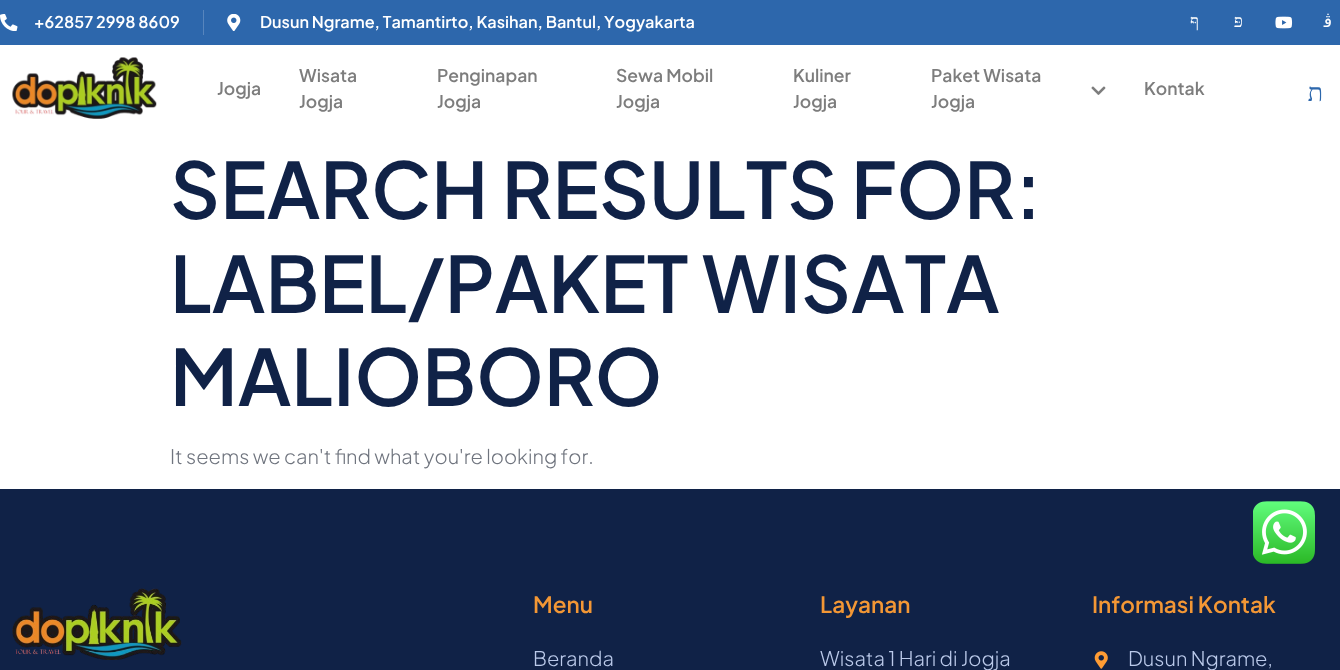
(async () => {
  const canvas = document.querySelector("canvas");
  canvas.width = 1340;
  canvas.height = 670;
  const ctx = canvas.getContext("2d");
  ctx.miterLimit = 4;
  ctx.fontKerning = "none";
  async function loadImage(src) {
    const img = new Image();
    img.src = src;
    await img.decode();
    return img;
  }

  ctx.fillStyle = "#ffffff";
  ctx.fillRect(0, 0, 1340, 670);
  ctx.fillStyle = "#2d67ac";
  ctx.fillRect(0, 0, 1340, 45);
  ctx.drawImage(await loadImage("img/1.png"), 0, 14, 18, 17);
  ctx.fillStyle = "#5785bd";
  ctx.fillRect(203, 10, 1, 25);
  ctx.drawImage(await loadImage("img/2.png"), 227, 14, 14, 17);
  ctx.drawImage(await loadImage("img/3.png"), 1275, 16, 18, 13);
  ctx.drawImage(await loadImage("img/4.png"), 12, 57, 145, 62);
  ctx.drawImage(await loadImage("img/5.png"), 1091, 86, 15, 9);
  ctx.fillStyle = "#102247";
  ctx.fillRect(0, 489, 1340, 181);
  ctx.drawImage(await loadImage("img/6.png"), 1253, 501, 62, 63);
  ctx.drawImage(await loadImage("img/7.png"), 12, 588, 170, 72);
  ctx.drawImage(await loadImage("img/8.png"), 1094, 651, 14, 18);
  ctx.font = "600 16.25px Plus Jakarta Sans";
  ctx.fillStyle = "#ffffff";
  ctx.fillText("+62857 2998 8609", 34, 28);
  ctx.fillText("Dusun Ngrame, Tamantirto, Kasihan, Bantul, Yogyakarta", 260, 28);
  ctx.direction = "rtl";
  ctx.font = "17.5px Liberation Serif";
  ctx.fillText("ףּ", 1199, 27);
  ctx.fillText("פּ", 1243, 27);
  ctx.font = "17.5px DejaVu Sans";
  ctx.fillText("ﭬ", 1332, 27);
  ctx.direction = "ltr";
  ctx.font = "600 17.5px Plus Jakarta Sans";
  ctx.fillStyle = "#7d7d7d";
  for (const [text, x, y] of [
    ["Jogja", 217, 95],
    ["Wisata", 299, 82],
    ["Jogja", 299, 108],
    ["Penginapan", 437, 82],
    ["Jogja", 437, 108],
    ["Sewa Mobil", 616, 82],
    ["Jogja", 616, 108],
    ["Kuliner", 793, 82],
    ["Jogja", 793, 108],
    ["Paket Wisata", 931, 82],
    ["Jogja", 931, 108],
    ["Kontak", 1144, 95],
  ]) {
    ctx.fillText(text, x, y);
  }
  ctx.direction = "rtl";
  ctx.font = "25px Liberation Serif";
  ctx.fillStyle = "#2d67ac";
  ctx.fillText("ﬨ", 1323, 101);
  ctx.direction = "ltr";
  ctx.font = "600 77.5px Plus Jakarta Sans";
  ctx.fillStyle = "#102247";
  for (const [text, x, y] of [
    ["SEARCH RESULTS FOR:", 170, 219],
    ["LABEL/PAKET WISATA", 170, 313],
    ["MALIOBORO", 170, 406],
  ]) {
    ctx.fillText(text, x, y);
  }
  ctx.font = "300 20px Plus Jakarta Sans";
  ctx.fillStyle = "#6f747e";
  ctx.fillText("It seems we can't find what you're looking for.", 170, 464);
  ctx.font = "600 22.5px Plus Jakarta Sans";
  ctx.fillStyle = "#f39735";
  ctx.fillText("Menu", 533, 613);
  ctx.font = "300 20px Plus Jakarta Sans";
  ctx.fillStyle = "#bbcaea";
  ctx.fillText("Beranda", 533, 666);
  ctx.font = "600 22.5px Plus Jakarta Sans";
  ctx.fillStyle = "#f39735";
  ctx.fillText("Layanan", 820, 613);
  ctx.font = "300 20px Plus Jakarta Sans";
  ctx.fillStyle = "#bbcaea";
  ctx.fillText("Wisata 1 Hari di Jogja", 820, 666);
  ctx.font = "600 22.5px Plus Jakarta Sans";
  ctx.fillStyle = "#f39735";
  ctx.fillText("Informasi Kontak", 1092, 613);
  ctx.font = "300 20px Plus Jakarta Sans";
  ctx.fillStyle = "#bbcaea";
  ctx.fillText("Dusun Ngrame,", 1128, 666);
})();
